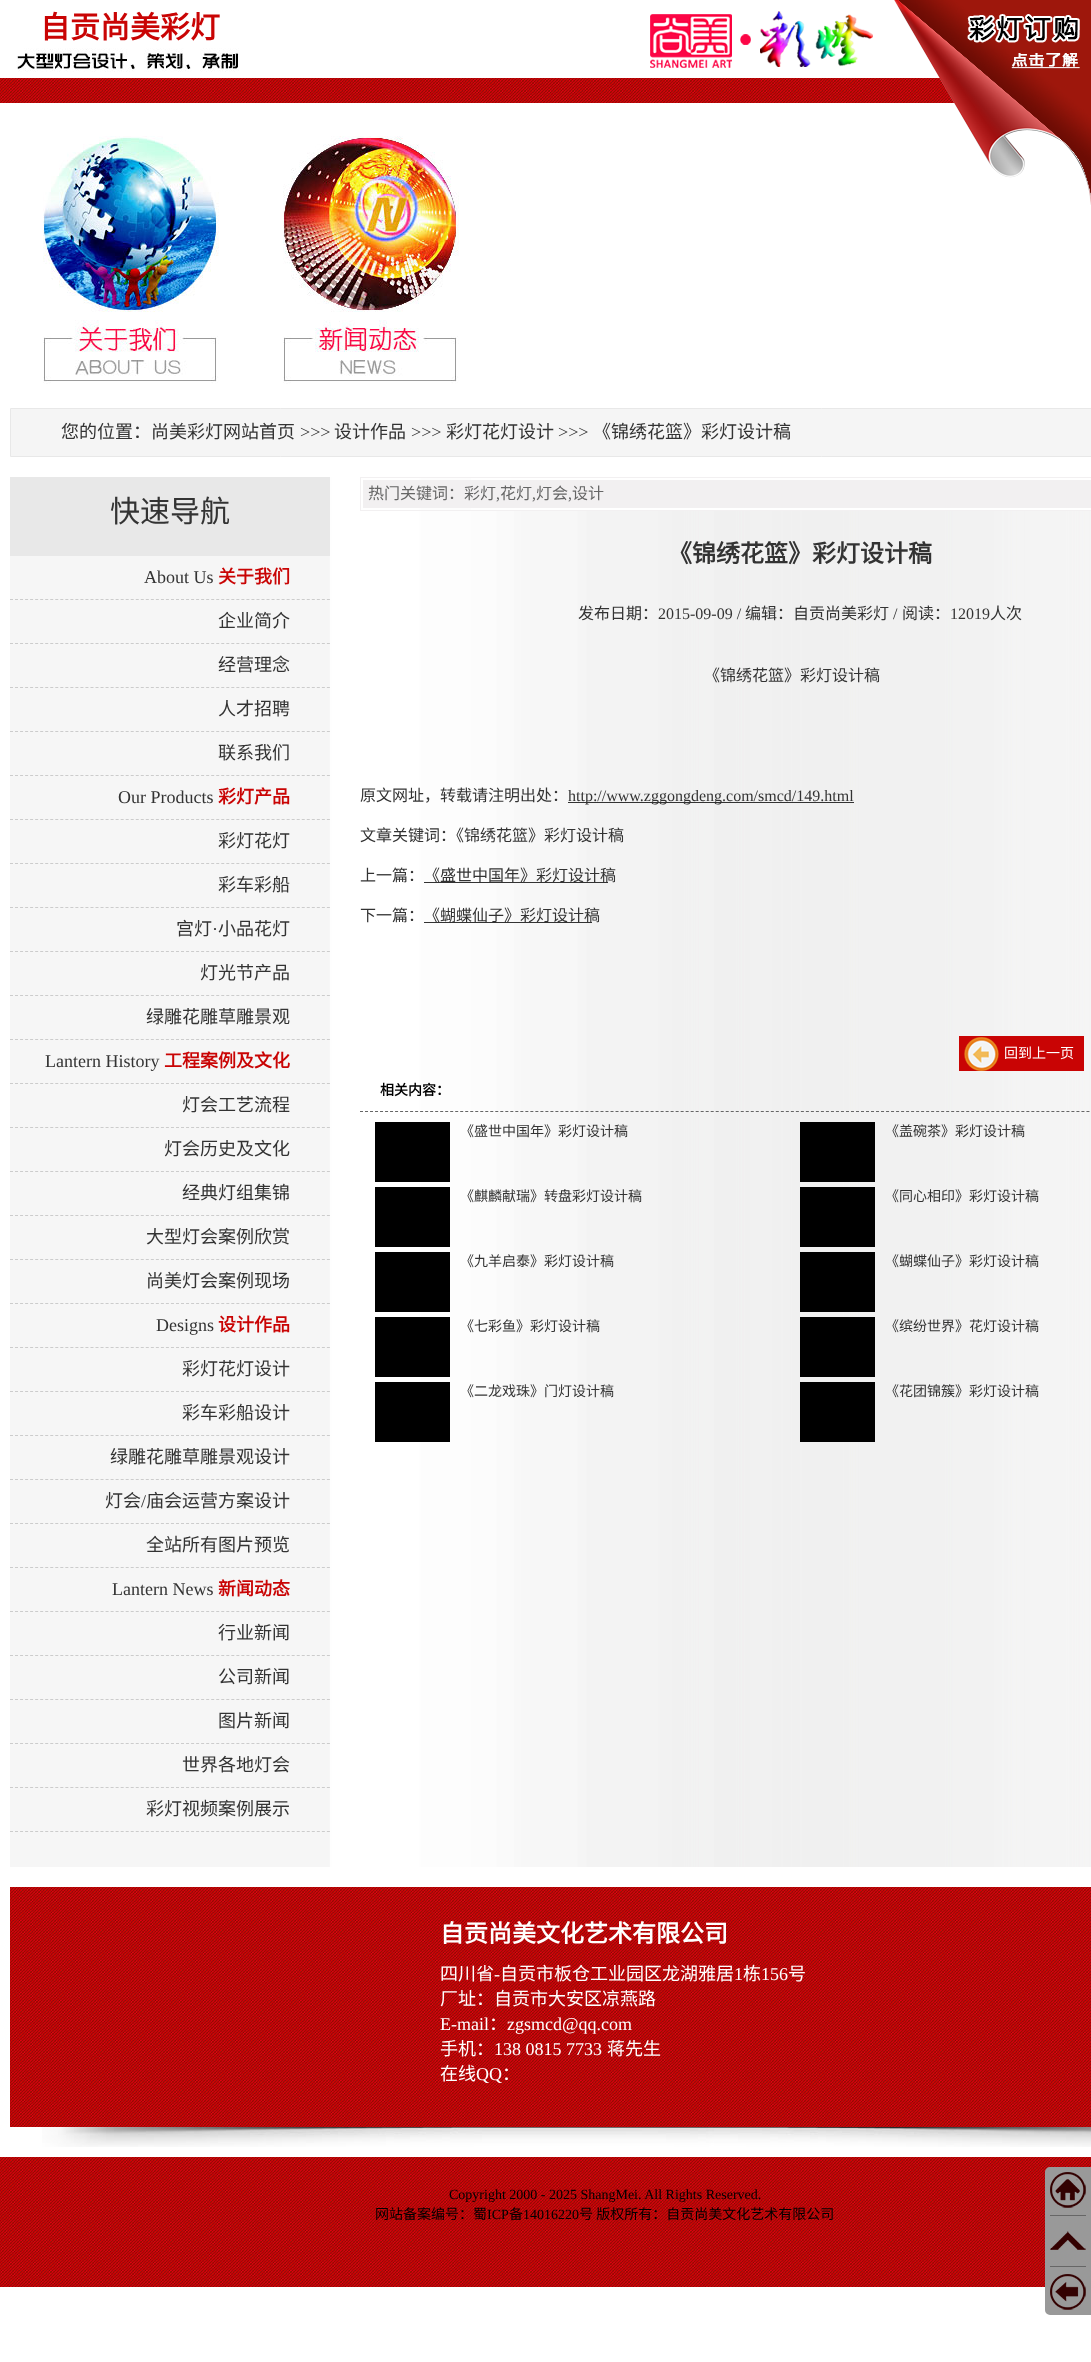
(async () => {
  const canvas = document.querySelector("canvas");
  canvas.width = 1091;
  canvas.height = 2362;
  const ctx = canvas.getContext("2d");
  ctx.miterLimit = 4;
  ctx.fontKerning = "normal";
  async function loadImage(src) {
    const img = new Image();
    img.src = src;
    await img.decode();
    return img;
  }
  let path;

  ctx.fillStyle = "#ffffff";
  ctx.fillRect(0, 0, 1091, 2362);
  ctx.drawImage(await loadImage("img/1.png"), 16, 48, 223, 24);
  ctx.drawImage(await loadImage("img/2.png"), 650, 11, 223, 57);
  ctx.drawImage(await loadImage("img/4.png"), 0, 78, 955, 25);
  ctx.drawImage(await loadImage("img/3.png"), 894, 0, 197, 205);
  ctx.drawImage(await loadImage("img/5.png"), 43, 136, 176, 248);
  ctx.drawImage(await loadImage("img/6.png"), 283, 136, 176, 248);
  ctx.fillStyle = "#f5f5f5";
  ctx.beginPath();
  ctx.rect(10.5, 408.5, 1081, 48);
  ctx.fill();
  ctx.strokeStyle = "#e8e8e8";
  ctx.stroke();
  ctx.drawImage(await loadImage("img/7.png"), 10, 477, 1081, 1390);
  ctx.fillStyle = "#e8e8e8";
  ctx.fillRect(10, 477, 320, 79);
  path = new Path2D("M10 599.5H330");
  ctx.strokeStyle = "#cccccc";
  ctx.setLineDash([3, 2.03]);
  ctx.stroke(path);
  path = new Path2D("M10 643.5H330");
  ctx.stroke(path);
  path = new Path2D("M10 687.5H330");
  ctx.stroke(path);
  path = new Path2D("M10 731.5H330");
  ctx.stroke(path);
  path = new Path2D("M10 775.5H330");
  ctx.stroke(path);
  path = new Path2D("M10 819.5H330");
  ctx.stroke(path);
  path = new Path2D("M10 863.5H330");
  ctx.stroke(path);
  path = new Path2D("M10 907.5H330");
  ctx.stroke(path);
  path = new Path2D("M10 951.5H330");
  ctx.stroke(path);
  path = new Path2D("M10 995.5H330");
  ctx.stroke(path);
  path = new Path2D("M10 1039.5H330");
  ctx.stroke(path);
  path = new Path2D("M10 1083.5H330");
  ctx.stroke(path);
  path = new Path2D("M10 1127.5H330");
  ctx.stroke(path);
  path = new Path2D("M10 1171.5H330");
  ctx.stroke(path);
  path = new Path2D("M10 1215.5H330");
  ctx.stroke(path);
  path = new Path2D("M10 1259.5H330");
  ctx.stroke(path);
  path = new Path2D("M10 1303.5H330");
  ctx.stroke(path);
  path = new Path2D("M10 1347.5H330");
  ctx.stroke(path);
  path = new Path2D("M10 1391.5H330");
  ctx.stroke(path);
  path = new Path2D("M10 1435.5H330");
  ctx.stroke(path);
  path = new Path2D("M10 1479.5H330");
  ctx.stroke(path);
  path = new Path2D("M10 1523.5H330");
  ctx.stroke(path);
  path = new Path2D("M10 1567.5H330");
  ctx.stroke(path);
  path = new Path2D("M10 1611.5H330");
  ctx.stroke(path);
  path = new Path2D("M10 1655.5H330");
  ctx.stroke(path);
  path = new Path2D("M10 1699.5H330");
  ctx.stroke(path);
  path = new Path2D("M10 1743.5H330");
  ctx.stroke(path);
  path = new Path2D("M10 1787.5H330");
  ctx.stroke(path);
  path = new Path2D("M10 1831.5H330");
  ctx.stroke(path);
  ctx.fillStyle = "#ffffff";
  ctx.fillRect(471, 478, 620, 32);
  ctx.strokeStyle = "#f2f0f1";
  ctx.setLineDash([]);
  ctx.strokeRect(360.5, 477.5, 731, 33);
  for (const [x, y, w, h, color] of [
    [363, 480, 728, 28, "#f2f0f1"],
    [568, 802, 286, 1, "#333333"],
    [424, 882, 184, 1, "#333333"],
    [424, 922, 168, 1, "#333333"],
    [959, 1036, 125, 35, "#c90404"],
  ]) {
    ctx.fillStyle = color;
    ctx.fillRect(x, y, w, h);
  }
  ctx.drawImage(await loadImage("img/8.png"), 964, 1037, 35, 34);
  path = new Path2D("M360 1111.5H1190");
  ctx.strokeStyle = "#666666";
  ctx.setLineDash([3, 2.01]);
  ctx.stroke(path);
  for (const [x, y, w, h, color] of [
    [375, 1122, 75, 60, "#000000"],
    [800, 1122, 75, 60, "#000000"],
    [375, 1187, 75, 60, "#000000"],
    [800, 1187, 75, 60, "#000000"],
    [375, 1252, 75, 60, "#000000"],
    [800, 1252, 75, 60, "#000000"],
    [375, 1317, 75, 60, "#000000"],
    [800, 1317, 75, 60, "#000000"],
    [375, 1382, 75, 60, "#000000"],
    [800, 1382, 75, 60, "#000000"],
  ]) {
    ctx.fillStyle = color;
    ctx.fillRect(x, y, w, h);
  }
  ctx.drawImage(await loadImage("img/9.png"), 10, 1887, 1081, 240);
  ctx.drawImage(await loadImage("img/10.png"), 42, 2127, 1049, 20);
  ctx.drawImage(await loadImage("img/11.png"), 0, 2157, 1091, 130);
  ctx.fillStyle = "#999999";
  ctx.beginPath();
  ctx.roundRect(1046.5, 2168.5, 43, 145, [3.5, 0, 0, 3.5]);
  ctx.fill();
  ctx.strokeStyle = "#999999";
  ctx.lineWidth = 3;
  ctx.setLineDash([]);
  ctx.stroke();
  ctx.drawImage(await loadImage("img/12.png"), 1050, 2172, 36, 36);
  ctx.fillStyle = "#666666";
  ctx.fillRect(1050, 2215, 36, 1);
  ctx.drawImage(await loadImage("img/13.png"), 1050, 2231, 36, 19);
  ctx.fillRect(1050, 2266, 36, 1);
  ctx.drawImage(await loadImage("img/14.png"), 1050, 2274, 36, 36);
  ctx.font = "bold 30px Noto Sans CJK SC";
  ctx.fillStyle = "#c90404";
  ctx.fillText("自贡尚美彩灯", 40, 38);
  ctx.font = "18px Noto Sans CJK SC";
  ctx.fillStyle = "#333333";
  ctx.fillText("您的位置：尚美彩灯网站首页", 61, 438);
  ctx.font = "18px Liberation Serif";
  ctx.fillText(">>>", 300, 438);
  ctx.font = "18px Noto Sans CJK SC";
  ctx.fillText("设计作品", 334, 438);
  ctx.font = "18px Liberation Serif";
  ctx.fillText(">>>", 411, 438);
  ctx.font = "18px Noto Sans CJK SC";
  ctx.fillText("彩灯花灯设计", 446, 438);
  ctx.font = "18px Liberation Serif";
  ctx.fillText(">>>", 558, 438);
  ctx.font = "18px Noto Sans CJK SC";
  ctx.fillText("《锦绣花篮》彩灯设计稿", 593, 438);
  ctx.font = "30px Noto Sans CJK SC";
  ctx.fillText("快速导航", 110, 522);
  ctx.font = "18px Liberation Serif";
  ctx.fillText("About Us", 144, 583);
  ctx.font = "bold 18px Noto Sans CJK SC";
  ctx.fillStyle = "#c90404";
  ctx.fillText("关于我们", 218, 583);
  ctx.font = "18px Noto Sans CJK SC";
  ctx.fillStyle = "#333333";
  for (const [text, x, y] of [
    ["企业简介", 218, 627],
    ["经营理念", 218, 671],
    ["人才招聘", 218, 715],
    ["联系我们", 218, 759],
  ]) {
    ctx.fillText(text, x, y);
  }
  ctx.font = "18px Liberation Serif";
  ctx.fillText("Our Products", 118, 803);
  ctx.font = "bold 18px Noto Sans CJK SC";
  ctx.fillStyle = "#c90404";
  ctx.fillText("彩灯产品", 218, 803);
  ctx.font = "18px Noto Sans CJK SC";
  ctx.fillStyle = "#333333";
  for (const [text, x, y] of [
    ["彩灯花灯", 218, 847],
    ["彩车彩船", 218, 891],
    ["宫灯", 176, 935],
  ]) {
    ctx.fillText(text, x, y);
  }
  ctx.font = "18px Liberation Serif";
  ctx.fillText("·", 212, 935);
  ctx.font = "18px Noto Sans CJK SC";
  for (const [text, x, y] of [
    ["小品花灯", 218, 935],
    ["灯光节产品", 200, 979],
    ["绿雕花雕草雕景观", 146, 1023],
  ]) {
    ctx.fillText(text, x, y);
  }
  ctx.font = "18px Liberation Serif";
  ctx.fillText("Lantern History", 45, 1067);
  ctx.font = "bold 18px Noto Sans CJK SC";
  ctx.fillStyle = "#c90404";
  ctx.fillText("工程案例及文化", 164, 1067);
  ctx.font = "18px Noto Sans CJK SC";
  ctx.fillStyle = "#333333";
  for (const [text, x, y] of [
    ["灯会工艺流程", 182, 1111],
    ["灯会历史及文化", 164, 1155],
    ["经典灯组集锦", 182, 1199],
    ["大型灯会案例欣赏", 146, 1243],
    ["尚美灯会案例现场", 146, 1287],
  ]) {
    ctx.fillText(text, x, y);
  }
  ctx.font = "18px Liberation Serif";
  ctx.fillText("Designs", 156, 1331);
  ctx.font = "bold 18px Noto Sans CJK SC";
  ctx.fillStyle = "#c90404";
  ctx.fillText("设计作品", 218, 1331);
  ctx.font = "18px Noto Sans CJK SC";
  ctx.fillStyle = "#333333";
  for (const [text, x, y] of [
    ["彩灯花灯设计", 182, 1375],
    ["彩车彩船设计", 182, 1419],
    ["绿雕花雕草雕景观设计", 110, 1463],
    ["灯会", 105, 1507],
  ]) {
    ctx.fillText(text, x, y);
  }
  ctx.font = "18px Liberation Serif";
  ctx.fillText("/", 141, 1507);
  ctx.font = "18px Noto Sans CJK SC";
  ctx.fillText("庙会运营方案设计", 146, 1507);
  ctx.fillText("全站所有图片预览", 146, 1551);
  ctx.font = "18px Liberation Serif";
  ctx.fillText("Lantern News", 112, 1595);
  ctx.font = "bold 18px Noto Sans CJK SC";
  ctx.fillStyle = "#c90404";
  ctx.fillText("新闻动态", 218, 1595);
  ctx.font = "18px Noto Sans CJK SC";
  ctx.fillStyle = "#333333";
  for (const [text, x, y] of [
    ["行业新闻", 218, 1639],
    ["公司新闻", 218, 1683],
    ["图片新闻", 218, 1727],
    ["世界各地灯会", 182, 1771],
    ["彩灯视频案例展示", 146, 1815],
  ]) {
    ctx.fillText(text, x, y);
  }
  ctx.font = "16px Noto Sans CJK SC";
  ctx.fillStyle = "#666666";
  ctx.fillText("热门关键词：彩灯", 368, 499);
  ctx.font = "16px Liberation Serif";
  ctx.fillText(",", 496, 499);
  ctx.font = "16px Noto Sans CJK SC";
  ctx.fillText("花灯", 500, 499);
  ctx.font = "16px Liberation Serif";
  ctx.fillText(",", 532, 499);
  ctx.font = "16px Noto Sans CJK SC";
  ctx.fillText("灯会", 536, 499);
  ctx.font = "16px Liberation Serif";
  ctx.fillText(",", 568, 499);
  ctx.font = "16px Noto Sans CJK SC";
  ctx.fillText("设计", 572, 499);
  ctx.font = "bold 24px Noto Sans CJK SC";
  ctx.fillStyle = "#333333";
  ctx.fillText("《锦绣花篮》彩灯设计稿", 668, 562);
  ctx.font = "16px Noto Sans CJK SC";
  ctx.fillText("发布日期：", 578, 619);
  ctx.font = "16px Liberation Serif";
  ctx.fillText("2015-09-09 /", 658, 619);
  ctx.font = "16px Noto Sans CJK SC";
  ctx.fillText("编辑：自贡尚美彩灯", 745, 619);
  ctx.font = "16px Liberation Serif";
  ctx.fillText("/", 893, 619);
  ctx.font = "16px Noto Sans CJK SC";
  ctx.fillText("阅读：", 902, 619);
  ctx.font = "16px Liberation Serif";
  ctx.fillText("12019", 950, 619);
  ctx.font = "16px Noto Sans CJK SC";
  for (const [text, x, y] of [
    ["人次", 990, 619],
    ["《锦绣花篮》彩灯设计稿", 704, 681],
    ["原文网址，转载请注明出处：", 360, 801],
  ]) {
    ctx.fillText(text, x, y);
  }
  ctx.font = "16px Liberation Serif";
  ctx.fillText("http://www.zggongdeng.com/smcd/149.html", 568, 801);
  ctx.font = "16px Noto Sans CJK SC";
  for (const [text, x, y] of [
    ["文章关键词：《锦绣花篮》彩灯设计稿", 360, 841],
    ["上一篇：", 360, 881],
    ["《盛世中国年》彩灯设计稿", 424, 881],
    ["下一篇：", 360, 921],
    ["《蝴蝶仙子》彩灯设计稿", 424, 921],
  ]) {
    ctx.fillText(text, x, y);
  }
  ctx.font = "14px Noto Sans CJK SC";
  ctx.fillStyle = "#ffffff";
  ctx.fillText("回到上一页", 1004, 1058);
  ctx.font = "bold 14px Noto Sans CJK SC";
  ctx.fillStyle = "#000000";
  ctx.fillText("相关内容：", 380, 1095);
  ctx.font = "14px Noto Sans CJK SC";
  ctx.fillStyle = "#333333";
  for (const [text, x, y] of [
    ["《盛世中国年》彩灯设计稿", 460, 1136],
    ["《盖碗茶》彩灯设计稿", 885, 1136],
    ["《麒麟献瑞》转盘彩灯设计稿", 460, 1201],
    ["《同心相印》彩灯设计稿", 885, 1201],
    ["《九羊启泰》彩灯设计稿", 460, 1266],
    ["《蝴蝶仙子》彩灯设计稿", 885, 1266],
    ["《七彩鱼》彩灯设计稿", 460, 1331],
    ["《缤纷世界》花灯设计稿", 885, 1331],
    ["《二龙戏珠》门灯设计稿", 460, 1396],
    ["《花团锦簇》彩灯设计稿", 885, 1396],
  ]) {
    ctx.fillText(text, x, y);
  }
  ctx.font = "bold 24px Noto Sans CJK SC";
  ctx.fillStyle = "#ffffff";
  ctx.fillText("自贡尚美文化艺术有限公司", 440, 1942);
  ctx.font = "18px Noto Sans CJK SC";
  ctx.fillText("四川省", 440, 1980);
  ctx.font = "18px Liberation Serif";
  ctx.fillText("-", 494, 1980);
  ctx.font = "18px Noto Sans CJK SC";
  ctx.fillText("自贡市板仓工业园区龙湖雅居", 500, 1980);
  ctx.font = "18px Liberation Serif";
  ctx.fillText("1", 734, 1980);
  ctx.font = "18px Noto Sans CJK SC";
  ctx.fillText("栋", 743, 1980);
  ctx.font = "18px Liberation Serif";
  ctx.fillText("156", 761, 1980);
  ctx.font = "18px Noto Sans CJK SC";
  ctx.fillText("号", 788, 1980);
  ctx.fillText("厂址：自贡市大安区凉燕路", 440, 2005);
  ctx.font = "18px Liberation Serif";
  ctx.fillText("E-mail", 440, 2030);
  ctx.font = "18px Noto Sans CJK SC";
  ctx.fillText("：", 489, 2030);
  ctx.font = "18px Liberation Serif";
  ctx.fillText("zgsmcd@qq.com", 507, 2030);
  ctx.font = "18px Noto Sans CJK SC";
  ctx.fillText("手机：", 440, 2055);
  ctx.font = "18px Liberation Serif";
  ctx.fillText("138 0815 7733", 494, 2055);
  ctx.font = "18px Noto Sans CJK SC";
  ctx.fillText("蒋先生", 607, 2055);
  ctx.fillText("在线", 440, 2080);
  ctx.font = "18px Liberation Serif";
  ctx.fillText("QQ", 476, 2080);
  ctx.font = "18px Noto Sans CJK SC";
  ctx.fillText("：", 502, 2080);
  ctx.font = "14px Liberation Serif";
  ctx.fillStyle = "#000000";
  ctx.fillText("Copyright 2000 - 2025 ShangMei. All Rights Reserved.", 449, 2199);
  ctx.font = "14px Noto Sans CJK SC";
  ctx.fillText("网站备案编号：蜀", 375, 2219);
  ctx.font = "14px Liberation Serif";
  ctx.fillText("ICP", 487, 2219);
  ctx.font = "14px Noto Sans CJK SC";
  ctx.fillText("备", 509, 2219);
  ctx.font = "14px Liberation Serif";
  ctx.fillText("14016220", 523, 2219);
  ctx.font = "14px Noto Sans CJK SC";
  ctx.fillText("号 版权所有：自贡尚美文化艺术有限公司", 579, 2219);
})();
